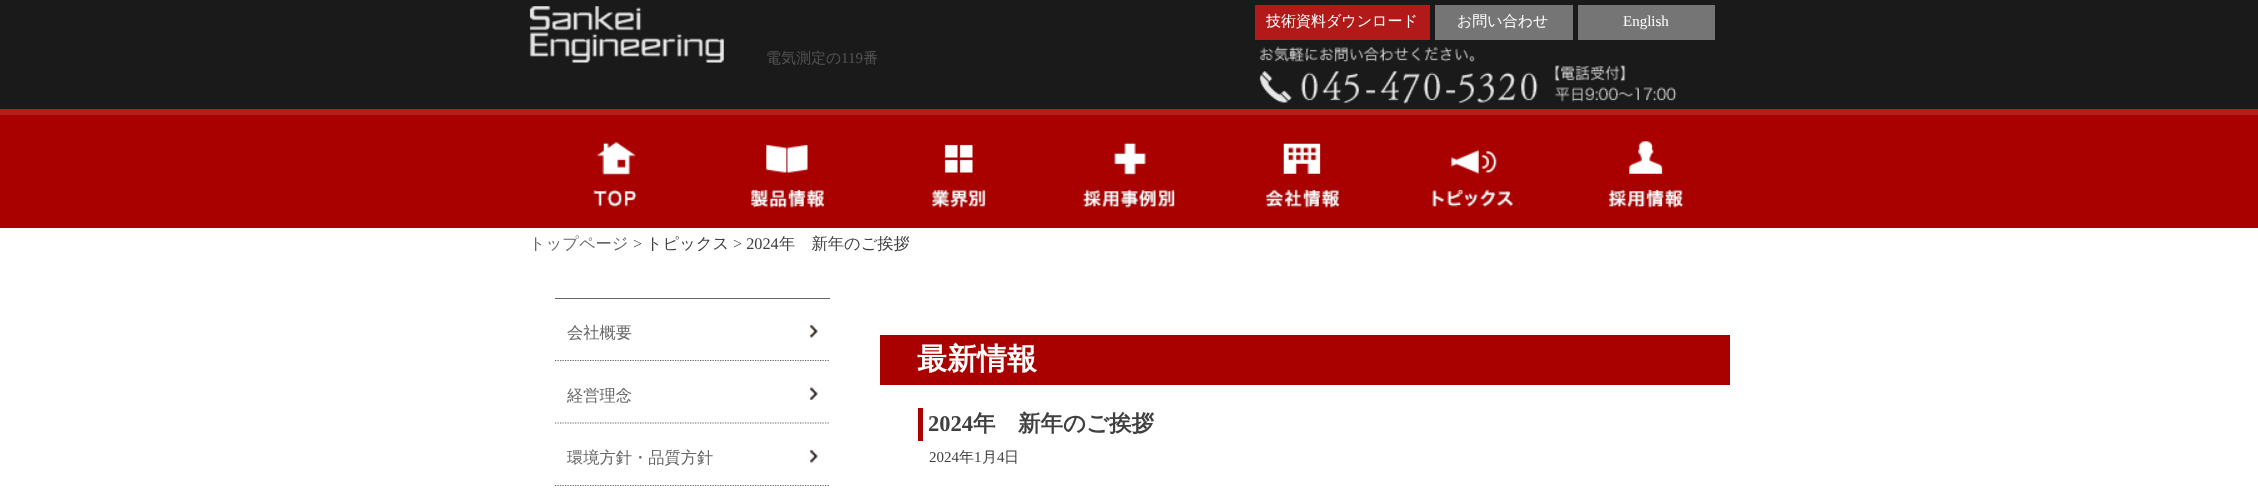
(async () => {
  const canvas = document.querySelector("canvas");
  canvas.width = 2258;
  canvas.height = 496;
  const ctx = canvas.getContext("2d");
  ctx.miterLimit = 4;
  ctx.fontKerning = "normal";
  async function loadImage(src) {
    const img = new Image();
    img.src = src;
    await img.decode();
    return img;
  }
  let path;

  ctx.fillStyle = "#ffffff";
  ctx.fillRect(0, 0, 2258, 496);
  for (const [x, y, w, h, color] of [
    [0, 0, 2258, 109, "#1a1a1a"],
    [1255, 5, 175, 35, "#b21a1a"],
    [1435, 5, 138, 35, "#757575"],
    [1578, 5, 137, 35, "#757575"],
  ]) {
    ctx.fillStyle = color;
    ctx.fillRect(x, y, w, h);
  }
  ctx.drawImage(await loadImage("img/1.png"), 1259, 46, 418, 58);
  ctx.drawImage(await loadImage("img/2.png"), 529, 6, 195, 57);
  ctx.fillStyle = "#a90000";
  ctx.fillRect(0, 115, 2258, 113);
  ctx.fillStyle = "#b81d1d";
  ctx.fillRect(0, 109, 2258, 6);
  ctx.drawImage(await loadImage("img/3.png"), 593, 141, 44, 1);
  ctx.drawImage(await loadImage("img/4.png"), 593, 142, 44, 65);
  ctx.drawImage(await loadImage("img/5.png"), 751, 144, 74, 1);
  ctx.drawImage(await loadImage("img/6.png"), 751, 145, 74, 63);
  ctx.drawImage(await loadImage("img/7.png"), 931, 144, 55, 1);
  ctx.drawImage(await loadImage("img/8.png"), 931, 145, 55, 63);
  ctx.drawImage(await loadImage("img/9.png"), 1083, 142, 93, 1);
  ctx.drawImage(await loadImage("img/10.png"), 1083, 143, 93, 65);
  ctx.drawImage(await loadImage("img/11.png"), 1266, 143, 74, 65);
  ctx.drawImage(await loadImage("img/12.png"), 1432, 149, 81, 58);
  ctx.drawImage(await loadImage("img/13.png"), 1608, 141, 76, 67);
  ctx.fillStyle = "#666666";
  ctx.fillRect(555, 298, 275, 1);
  ctx.drawImage(await loadImage("img/14.png"), 810, 325, 8, 13);
  path = new Path2D("M555 360.5H830");
  ctx.strokeStyle = "#666666";
  ctx.lineWidth = 1.2;
  ctx.setLineDash([1.25, 1.25]);
  ctx.stroke(path);
  ctx.drawImage(await loadImage("img/15.png"), 810, 387, 8, 13);
  path = new Path2D("M555 423H830");
  ctx.stroke(path);
  ctx.drawImage(await loadImage("img/14.png"), 810, 450, 8, 13);
  path = new Path2D("M555 485.5H830");
  ctx.stroke(path);
  ctx.fillStyle = "#a90000";
  ctx.fillRect(880, 335, 850, 50);
  ctx.fillRect(918, 408, 5, 33);
  ctx.font = "500 15px WenQuanYi Zen Hei";
  ctx.fillStyle = "#ffffff";
  ctx.fillText("技術資料ダウンロード", 1266, 26);
  ctx.fillText("お問い合わせ", 1457, 26);
  ctx.font = "15px Liberation Serif";
  ctx.fillText("English", 1623, 26);
  ctx.font = "500 15px WenQuanYi Zen Hei";
  ctx.fillStyle = "#535353";
  ctx.fillText("電気測定の", 766, 63);
  ctx.font = "15px Liberation Serif";
  ctx.fillText("119", 841, 63);
  ctx.font = "500 15px WenQuanYi Zen Hei";
  ctx.fillText("番", 863, 63);
  ctx.font = "500 16.25px WenQuanYi Zen Hei";
  ctx.fillStyle = "#666666";
  ctx.fillText("トップページ", 529, 249);
  ctx.font = "16.25px Liberation Serif";
  ctx.fillStyle = "#404040";
  ctx.fillText(">", 633, 249);
  ctx.font = "500 16.25px WenQuanYi Zen Hei";
  ctx.fillText("トピックス", 646, 249);
  ctx.font = "16.25px Liberation Serif";
  ctx.fillText("> 2024", 733, 249);
  ctx.font = "500 16.25px WenQuanYi Zen Hei";
  ctx.fillText("年　新年のご挨拶", 779, 249);
  ctx.fillStyle = "#666666";
  for (const [text, x, y] of [
    ["会社概要", 567, 338],
    ["経営理念", 567, 401],
    ["環境方針・品質方針", 567, 463],
  ]) {
    ctx.fillText(text, x, y);
  }
  ctx.font = "bold 30px WenQuanYi Zen Hei";
  ctx.fillStyle = "#ffffff";
  ctx.fillText("最新情報", 917, 369);
  ctx.font = "bold 22.5px Liberation Serif";
  ctx.fillStyle = "#404040";
  ctx.fillText("2024", 928, 431);
  ctx.font = "bold 22.5px WenQuanYi Zen Hei";
  ctx.fillText("年　新年のご挨拶", 973, 431);
  ctx.font = "15px Liberation Serif";
  ctx.fillText("2024", 929, 462);
  ctx.font = "500 15px WenQuanYi Zen Hei";
  ctx.fillText("年", 959, 462);
  ctx.font = "15px Liberation Serif";
  ctx.fillText("1", 974, 462);
  ctx.font = "500 15px WenQuanYi Zen Hei";
  ctx.fillText("月", 982, 462);
  ctx.font = "15px Liberation Serif";
  ctx.fillText("4", 997, 462);
  ctx.font = "500 15px WenQuanYi Zen Hei";
  ctx.fillText("日", 1004, 462);
})();
